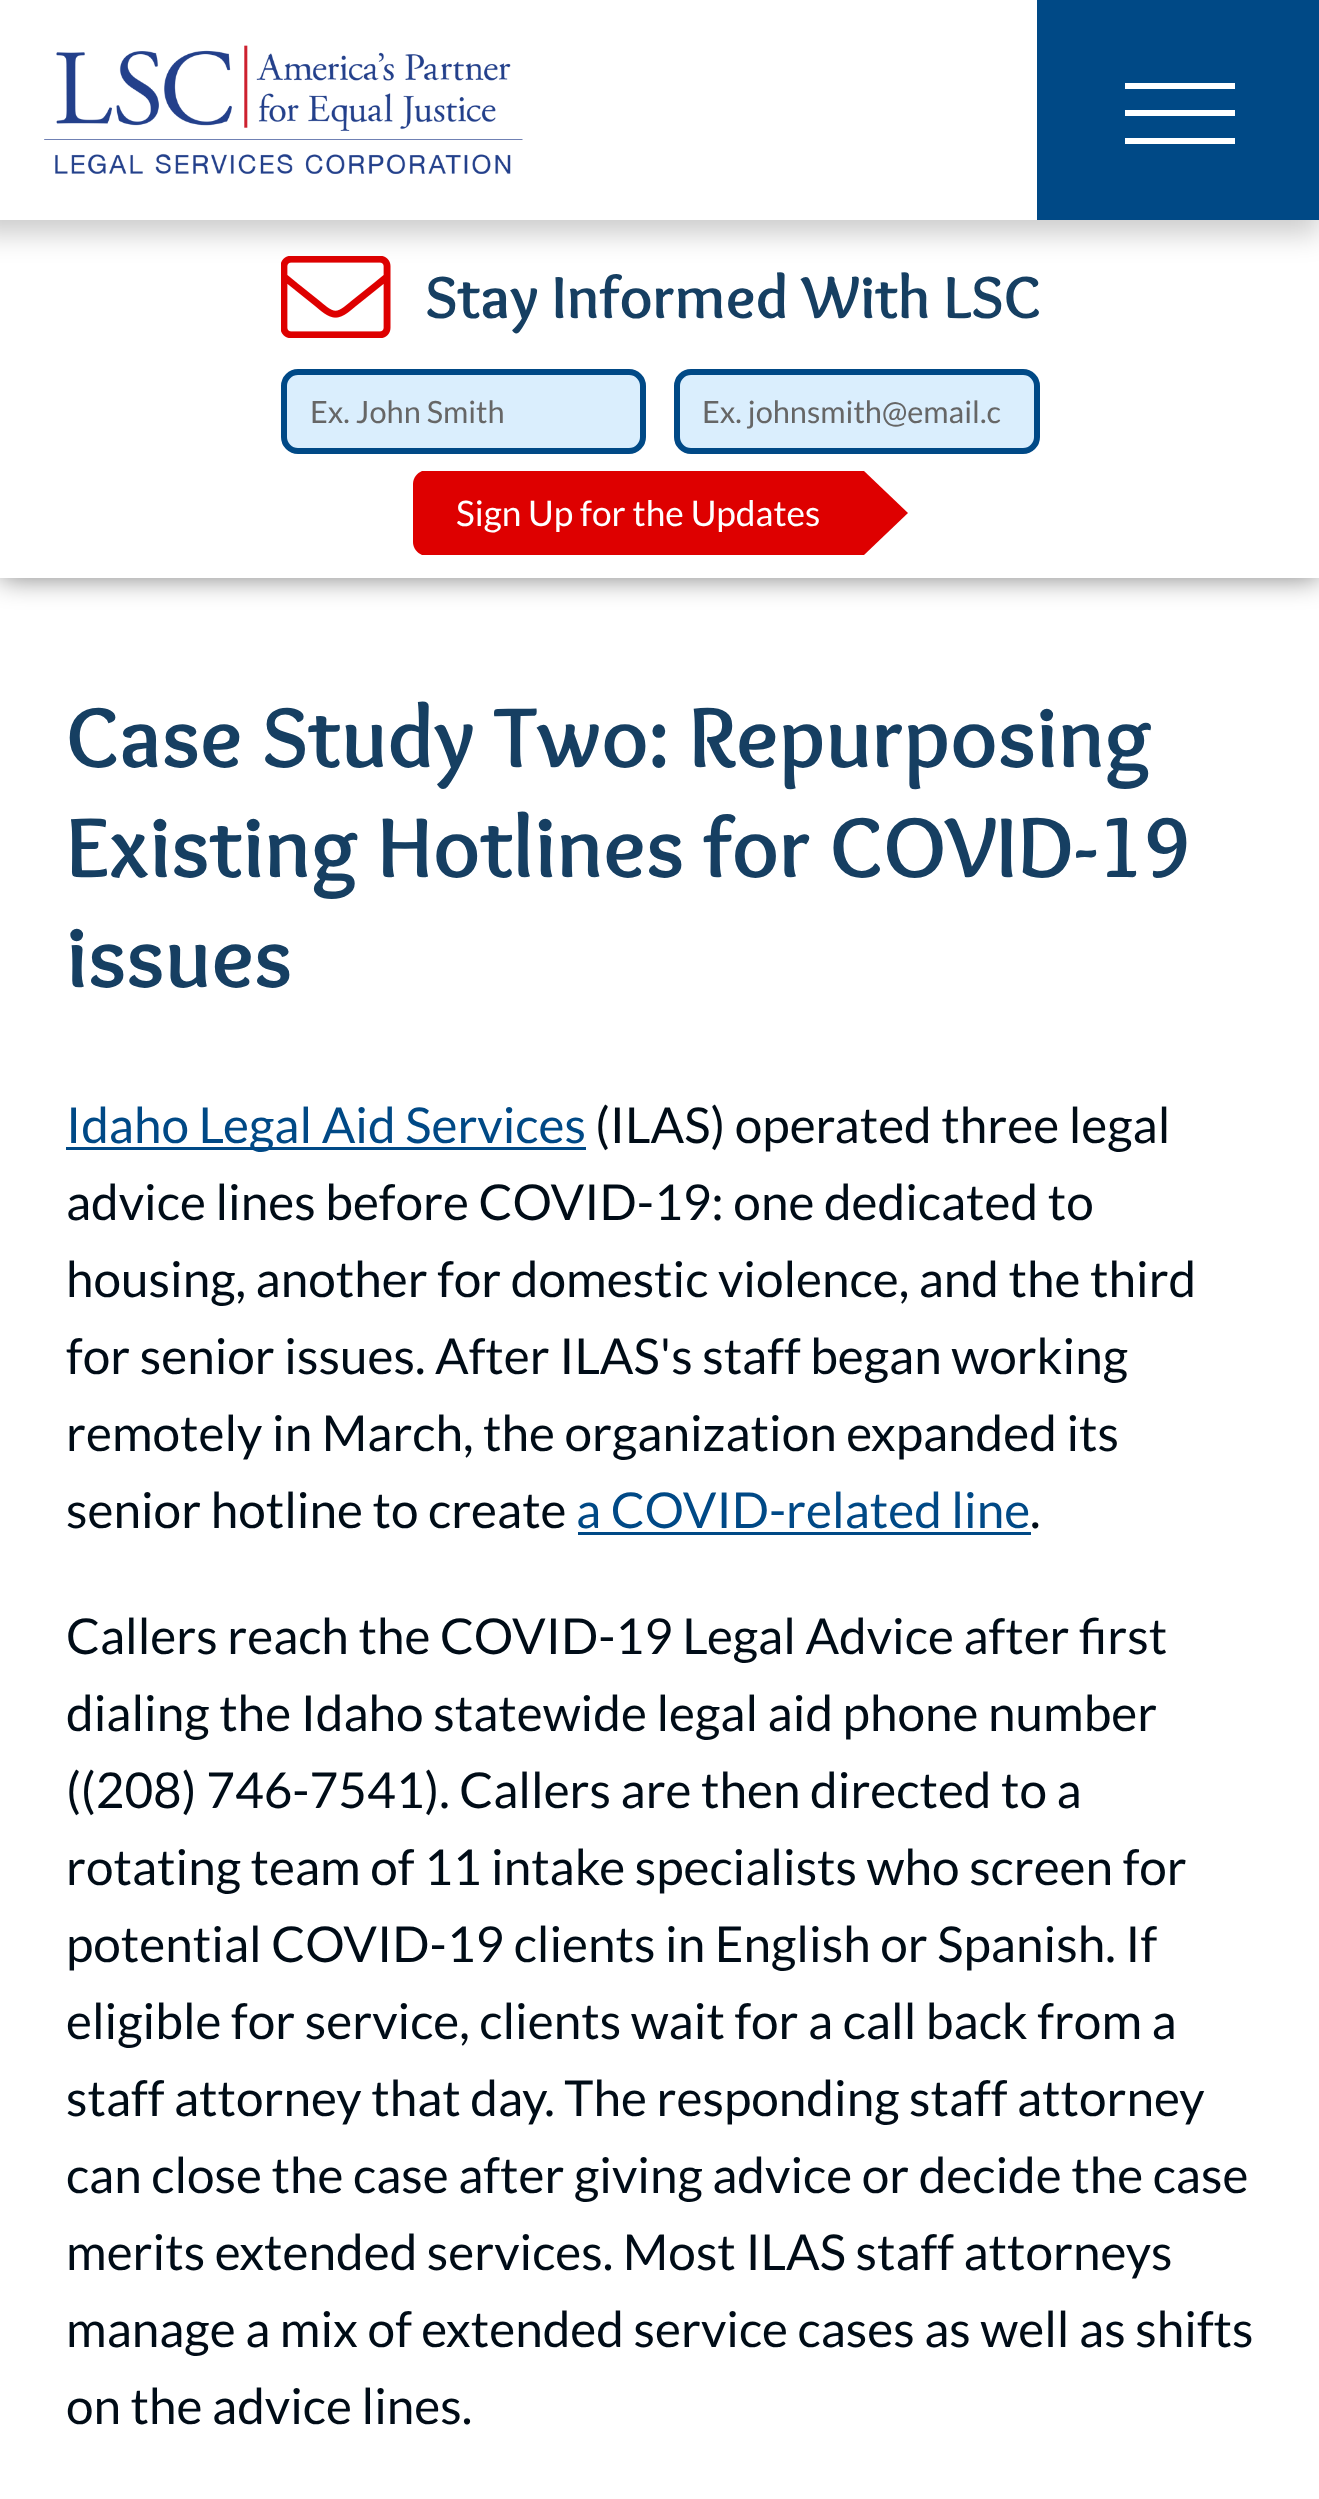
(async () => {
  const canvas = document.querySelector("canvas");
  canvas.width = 1319;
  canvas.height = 2499;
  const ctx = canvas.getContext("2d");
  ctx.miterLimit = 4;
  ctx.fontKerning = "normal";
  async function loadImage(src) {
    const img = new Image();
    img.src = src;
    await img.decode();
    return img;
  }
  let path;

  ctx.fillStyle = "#ffffff";
  ctx.fillRect(0, 0, 1319, 2499);
  ctx.save();
  path = new Path2D("M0 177H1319V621H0ZM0 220H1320V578H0Z");
  ctx.clip(path, "evenodd");
  ctx.fillStyle = "rgba(0, 0, 0, 0.5)";
  ctx.filter = "blur(14px)";
  ctx.beginPath();
  ctx.rect(0, 220, 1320, 358);
  ctx.fill();
  ctx.filter = "none";
  ctx.restore();
  ctx.drawImage(await loadImage("img/2.png"), 281, 256, 110, 82);
  ctx.fillStyle = "rgba(0, 0, 0, 0.2)";
  ctx.filter = "blur(14px)";
  ctx.beginPath();
  ctx.rect(-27, -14, 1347, 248);
  ctx.fill();
  ctx.filter = "none";
  ctx.fillStyle = "#ffffff";
  ctx.fillRect(0, 0, 1037, 220);
  ctx.drawImage(await loadImage("img/1.png"), 44, 45, 479, 129);
  for (const [x, y, w, h, color] of [
    [1037, 0, 282, 220, "#004986"],
    [1125, 83, 110, 6, "#ffffff"],
    [1125, 110, 110, 6, "#ffffff"],
    [1125, 138, 110, 6, "#ffffff"],
  ]) {
    ctx.fillStyle = color;
    ctx.fillRect(x, y, w, h);
  }
  ctx.fillStyle = "#daeefd";
  ctx.beginPath();
  ctx.roundRect(284, 372, 359, 79, 14);
  ctx.fill();
  ctx.strokeStyle = "#004986";
  ctx.lineWidth = 6;
  ctx.stroke();
  ctx.beginPath();
  ctx.roundRect(677, 372, 360, 79, 14);
  ctx.fill();
  ctx.stroke();
  ctx.fillStyle = "#de0000";
  path = new Path2D("M422 555C417 553 413 548 413 542V484C413 478 417 473 422 471H864L908 513L864 555Z");
  ctx.fill(path);
  ctx.fillStyle = "#004986";
  ctx.fillRect(66, 1147, 520, 3);
  ctx.fillRect(578, 1532, 453, 3);
  ctx.font = "bold 61.6px Overlock";
  ctx.fillStyle = "#163f62";
  ctx.fillText("Stay Informed With LSC", 425, 318);
  ctx.font = "30.75px Lato";
  ctx.fillStyle = "#666666";
  ctx.fillText("Ex. John Smith", 310, 423);
  ctx.fillText("Ex. johnsmith@email.c", 702, 423);
  ctx.font = "35.25px Lato";
  ctx.fillStyle = "#ffffff";
  ctx.fillText("Sign Up for the Updates", 456, 526);
  ctx.font = "bold 88px Overlock";
  ctx.fillStyle = "#163f62";
  for (const [text, x, y] of [
    ["Case Study Two: Repurposing", 66, 767],
    ["Existing Hotlines for COVID-19", 66, 877],
    ["issues", 66, 987],
  ]) {
    ctx.fillText(text, x, y);
  }
  ctx.font = "49.5px Lato";
  ctx.fillStyle = "#004986";
  ctx.fillText("Idaho Legal Aid Services", 66, 1143);
  ctx.fillStyle = "#000c17";
  for (const [text, x, y] of [
    ["(ILAS) operated three legal", 595, 1143],
    ["advice lines before COVID-19: one dedicated to", 66, 1220],
    ["housing, another for domestic violence, and the third", 66, 1297],
    ["for senior issues. After ILAS's staff began working", 66, 1374],
    ["remotely in March, the organization expanded its", 66, 1451],
    ["senior hotline to create", 66, 1528],
  ]) {
    ctx.fillText(text, x, y);
  }
  ctx.fillStyle = "#004986";
  ctx.fillText("a COVID-related line", 576, 1528);
  ctx.fillStyle = "#000c17";
  for (const [text, x, y] of [
    [".", 1030, 1528],
    ["Callers reach the COVID-19 Legal Advice after first", 66, 1654],
    ["dialing the Idaho statewide legal aid phone number", 66, 1731],
    ["((208) 746-7541). Callers are then directed to a", 66, 1808],
    ["rotating team of 11 intake specialists who screen for", 66, 1885],
    ["potential COVID-19 clients in English or Spanish. If", 66, 1962],
    ["eligible for service, clients wait for a call back from a", 66, 2039],
    ["staff attorney that day. The responding staff attorney", 66, 2116],
    ["can close the case after giving advice or decide the case", 66, 2193],
    ["merits extended services. Most ILAS staff attorneys", 66, 2270],
    ["manage a mix of extended service cases as well as shifts", 66, 2347],
    ["on the advice lines.", 66, 2424],
  ]) {
    ctx.fillText(text, x, y);
  }
})();
